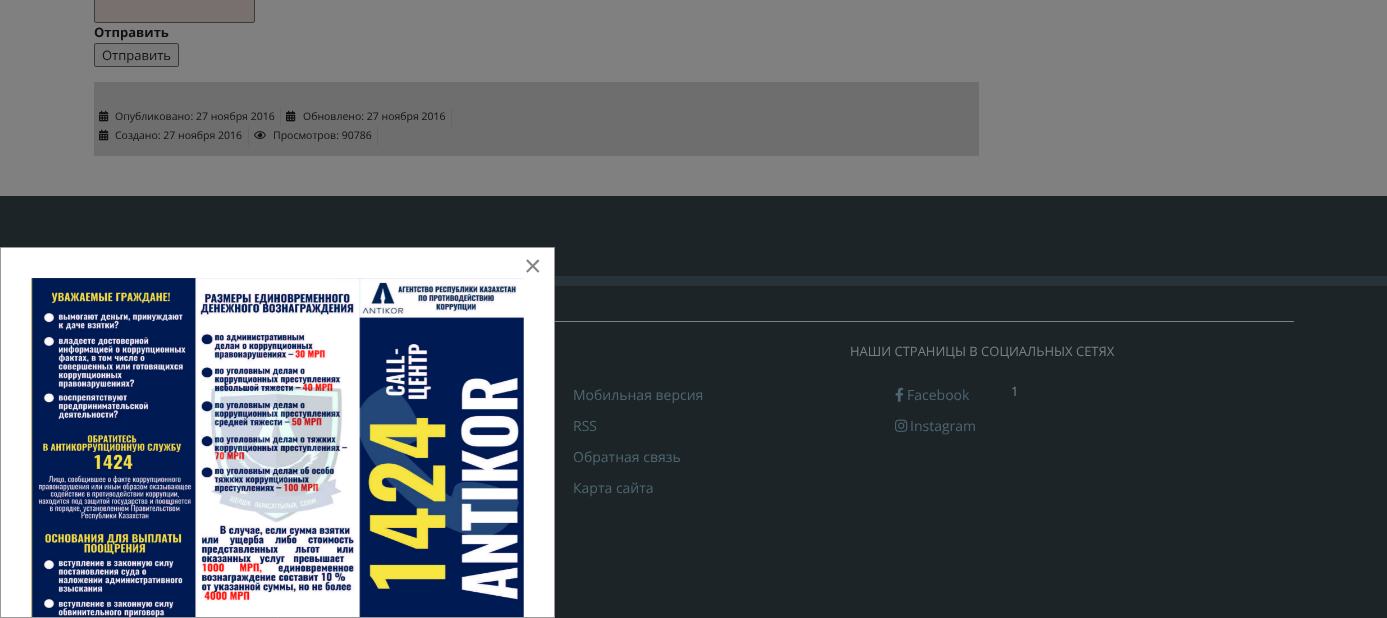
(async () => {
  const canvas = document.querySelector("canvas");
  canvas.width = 1387;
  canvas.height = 618;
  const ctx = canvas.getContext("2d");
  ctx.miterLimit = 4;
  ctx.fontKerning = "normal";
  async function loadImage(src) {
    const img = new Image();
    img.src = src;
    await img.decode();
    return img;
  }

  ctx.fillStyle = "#808080";
  ctx.fillRect(0, 0, 1387, 618);
  ctx.fillStyle = "#786f6f";
  ctx.beginPath();
  ctx.roundRect(94.5, -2.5, 160, 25, 1.5);
  ctx.fill();
  ctx.strokeStyle = "#3b3b3b";
  ctx.stroke();
  ctx.fillStyle = "#787878";
  ctx.beginPath();
  ctx.roundRect(94.5, 43.5, 84, 23, 1.5);
  ctx.fill();
  ctx.stroke();
  ctx.fillStyle = "#6e6e6e";
  ctx.fillRect(94, 82, 885, 74);
  ctx.fillStyle = "#666666";
  ctx.fillRect(280, 107, 1, 19);
  ctx.drawImage(await loadImage("img/1.png"), 99, 110, 10, 12);
  ctx.fillRect(451, 107, 1, 19);
  ctx.drawImage(await loadImage("img/1.png"), 286, 110, 10, 12);
  ctx.fillRect(248, 126, 1, 20);
  ctx.drawImage(await loadImage("img/1.png"), 99, 129, 10, 12);
  ctx.fillRect(377, 126, 1, 20);
  ctx.drawImage(await loadImage("img/2.png"), 254, 131, 12, 8);
  for (const [x, y, w, h, color] of [
    [0, 196, 1387, 80, "#1c2428"],
    [555, 276, 832, 10, "#273338"],
    [555, 286, 832, 332, "#1c2428"],
    [555, 321, 739, 1, "#808080"],
  ]) {
    ctx.fillStyle = color;
    ctx.fillRect(x, y, w, h);
  }
  ctx.drawImage(await loadImage("img/3.png"), 895, 387, 9, 15);
  ctx.drawImage(await loadImage("img/4.png"), 895, 419, 13, 13);
  ctx.fillStyle = "#ffffff";
  ctx.beginPath();
  ctx.rect(0.5, 247.5, 554, 370);
  ctx.fill();
  ctx.strokeStyle = "#999999";
  ctx.stroke();
  ctx.drawImage(await loadImage("img/5.png"), 31, 278, 493, 339);
  ctx.font = "bold 13px Open Sans";
  ctx.fillStyle = "#111111";
  ctx.fillText("Отправить", 94, 37);
  ctx.font = "13px Open Sans";
  ctx.fillText("Отправить", 102, 60);
  ctx.font = "10.5px Open Sans";
  for (const [text, x, y] of [
    ["Опубликовано: 27 ноября 2016", 115, 120],
    ["Обновлено: 27 ноября 2016", 303, 120],
    ["Создано: 27 ноября 2016", 115, 139],
    ["Просмотров: 90786", 273, 139],
  ]) {
    ctx.fillText(text, x, y);
  }
  ctx.font = "14px Open Sans";
  ctx.fillStyle = "#4f6671";
  for (const [text, x, y] of [
    ["Мобильная версия", 573, 400],
    ["RSS", 573, 431],
    ["Обратная связь", 573, 462],
    ["Карта сайта", 573, 493],
  ]) {
    ctx.fillText(text, x, y);
  }
  ctx.font = "13px Open Sans";
  ctx.fillStyle = "#808080";
  ctx.fillText("НАШИ СТРАНИЦЫ В СОЦИАЛЬНЫХ СЕТЯХ", 850, 356);
  ctx.font = "14px Open Sans";
  ctx.fillStyle = "#4f6671";
  ctx.fillText("Facebook", 907, 400);
  ctx.fillText("Instagram", 910, 431);
  ctx.font = "13px Open Sans";
  ctx.fillStyle = "#808080";
  ctx.fillText("1", 1011, 396);
  ctx.font = "30px Liberation Sans";
  ctx.fillStyle = "#888888";
  ctx.fillText("×", 524, 276);
})();
